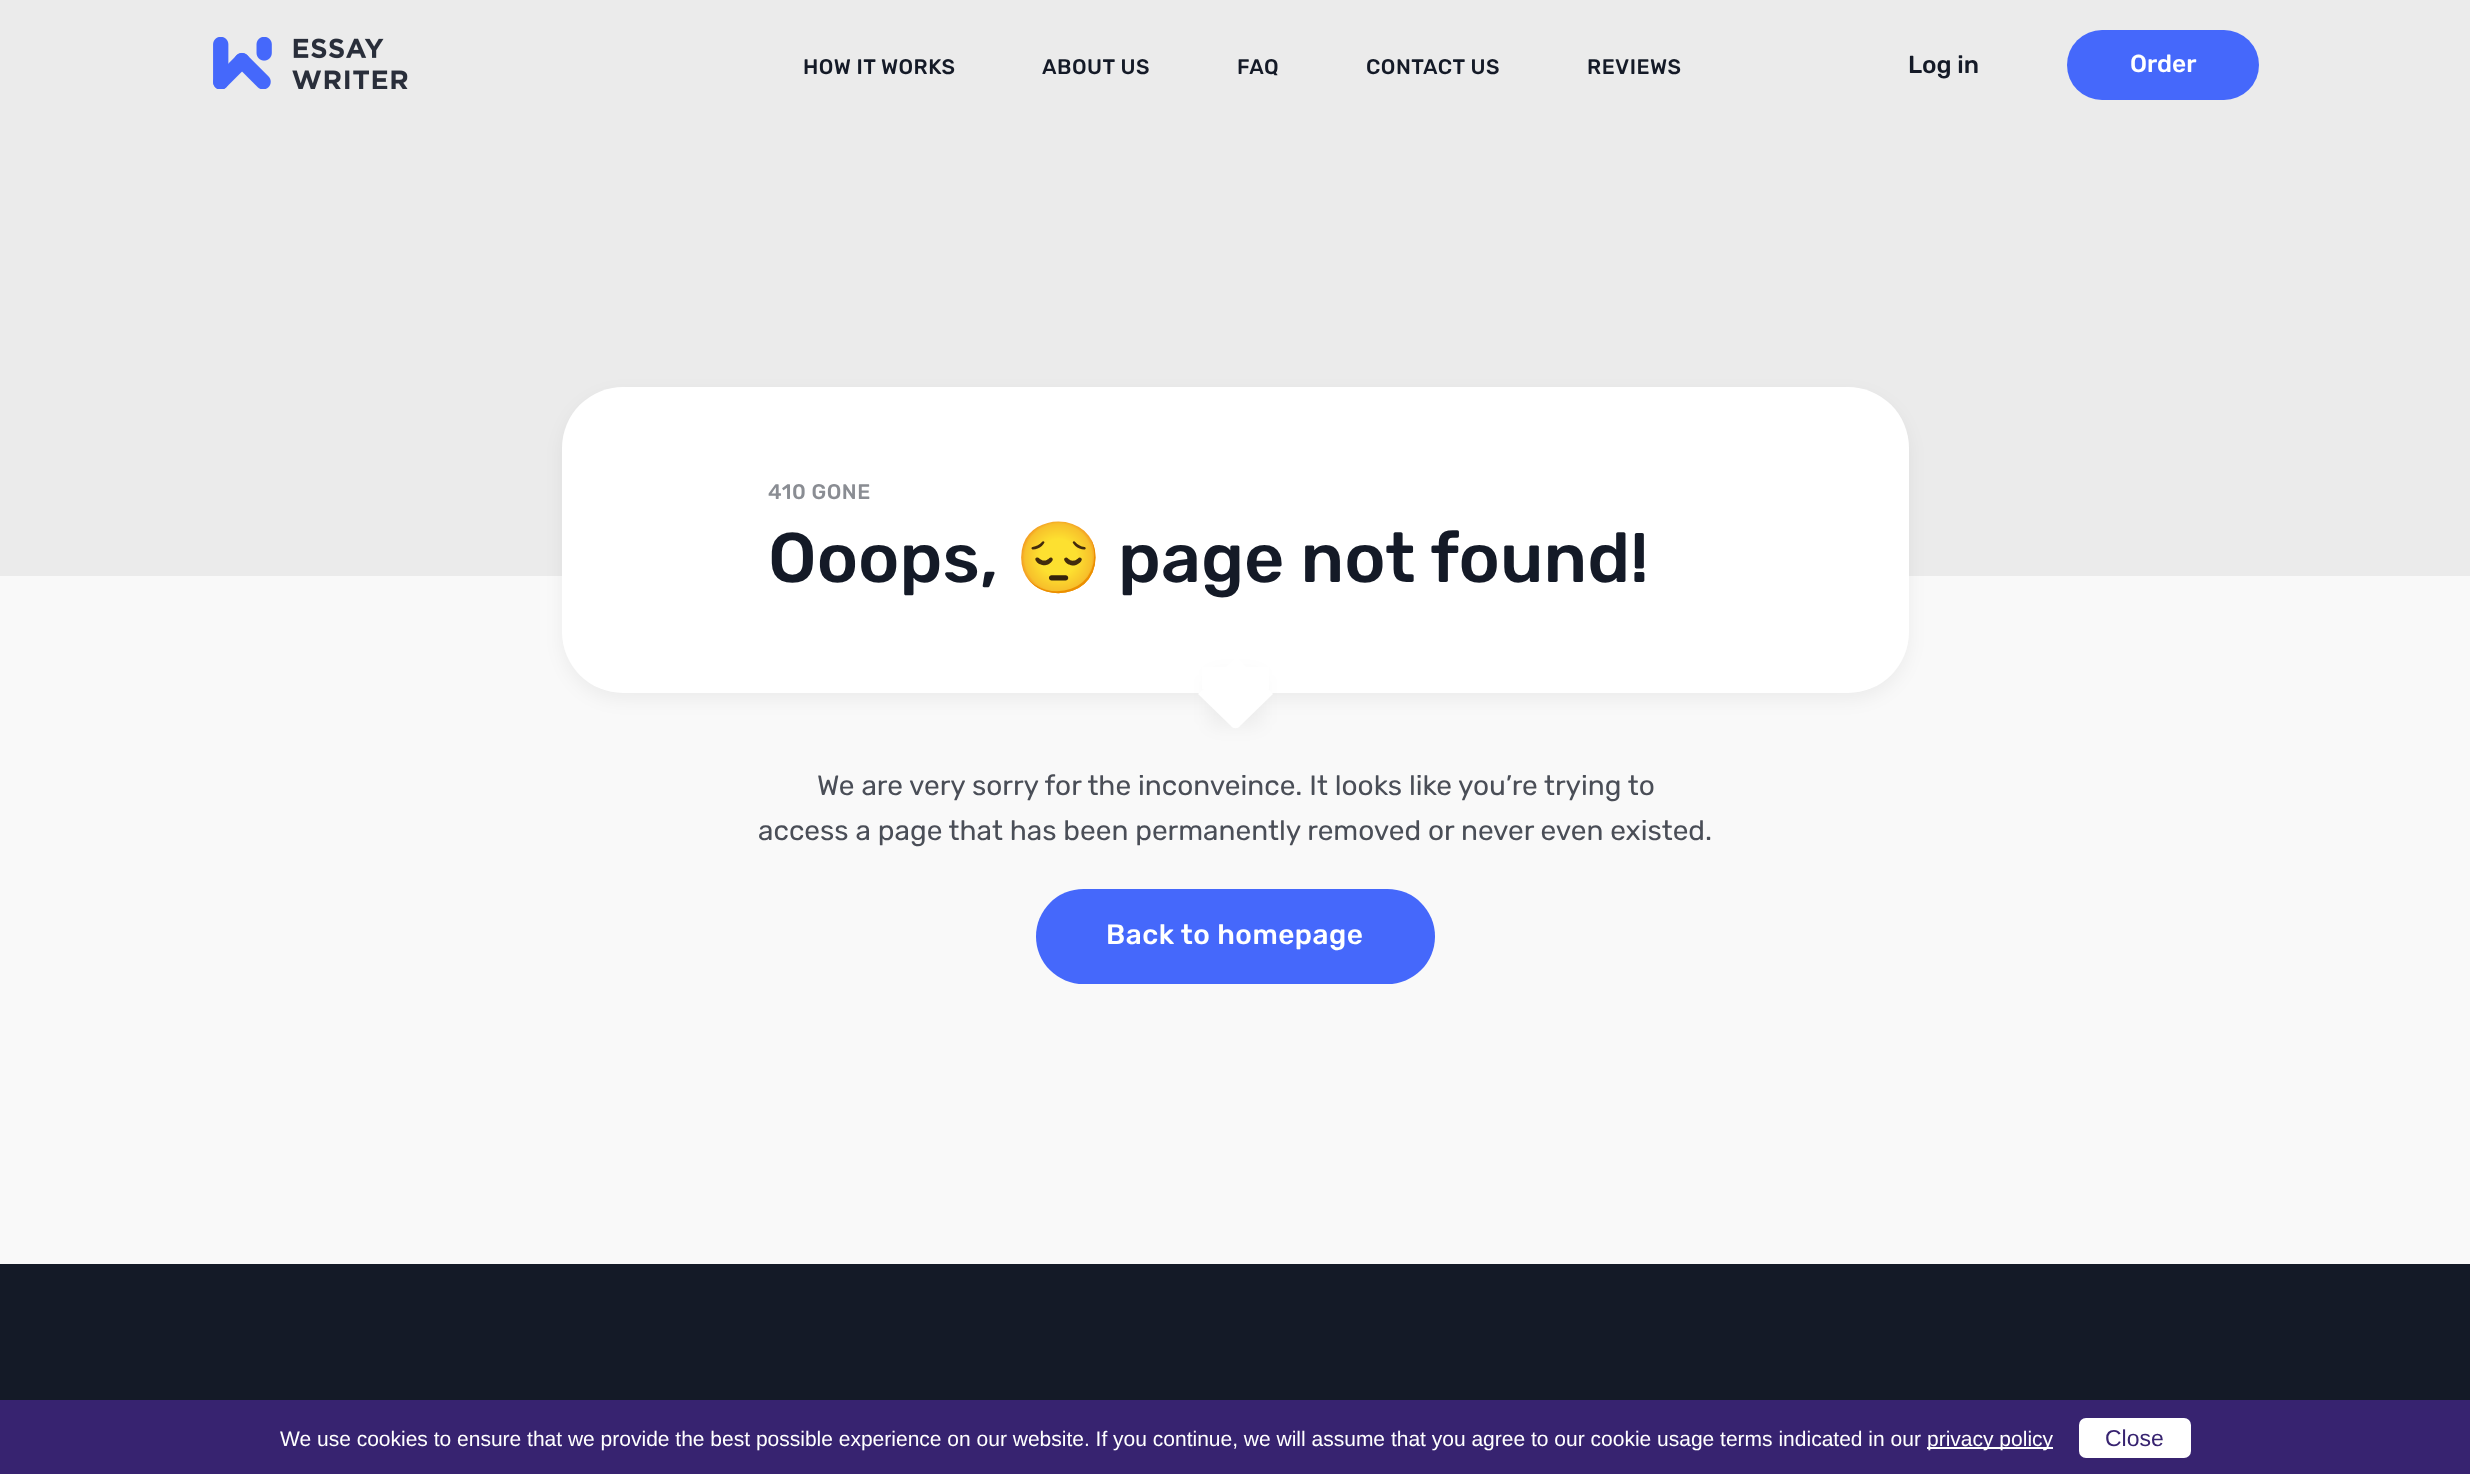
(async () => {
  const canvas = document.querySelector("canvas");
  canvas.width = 2470;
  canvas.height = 1474;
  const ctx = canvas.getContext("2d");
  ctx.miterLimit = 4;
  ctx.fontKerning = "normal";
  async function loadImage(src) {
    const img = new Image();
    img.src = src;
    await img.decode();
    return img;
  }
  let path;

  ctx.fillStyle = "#f9f9f9";
  ctx.fillRect(0, 0, 2470, 1474);
  ctx.fillStyle = "#ebebeb";
  ctx.fillRect(0, 0, 2470, 576);
  ctx.drawImage(await loadImage("img/1.png"), 213, 37, 195, 52);
  ctx.fillStyle = "#4568fb";
  ctx.beginPath();
  ctx.roundRect(2067, 30, 192, 70, 35);
  ctx.fill();
  ctx.fillStyle = "rgba(0, 0, 0, 0.05)";
  ctx.filter = "blur(9px)";
  ctx.beginPath();
  ctx.roundRect(562, 394, 1347, 306, 61);
  ctx.fill();
  ctx.filter = "none";
  ctx.fillStyle = "#ffffff";
  ctx.beginPath();
  ctx.roundRect(562, 387, 1347, 306, 61);
  ctx.fill();
  ctx.fillStyle = "rgba(0, 0, 0, 0.05)";
  ctx.filter = "blur(9px)";
  ctx.beginPath();
  ctx.roundRect(1209, 674, 53, 52, 7);
  ctx.fill();
  ctx.filter = "none";
  ctx.fillStyle = "#ffffff";
  path = new Path2D("M1236 657L1273 694L1240 726C1238 729 1233 729 1231 726L1198 694Z");
  ctx.fill(path);
  ctx.fillRect(1202, 667, 67, 22);
  ctx.fillStyle = "#4568fb";
  ctx.beginPath();
  ctx.roundRect(1036, 889, 399, 95, 47.5);
  ctx.fill();
  for (const [x, y, w, h, color] of [
    [0, 1264, 2470, 136, "#141a27"],
    [0, 1400, 2470, 74, "#372370"],
    [1927, 1447, 126, 2, "#ffffff"],
  ]) {
    ctx.fillStyle = color;
    ctx.fillRect(x, y, w, h);
  }
  ctx.beginPath();
  ctx.roundRect(2079, 1418, 112, 40, 7);
  ctx.fill();
  ctx.letterSpacing = "0.5px";
  ctx.font = "500 21px Rubik";
  ctx.fillStyle = "#141a27";
  for (const [text, x, y] of [
    ["HOW IT WORKS", 803, 74],
    ["ABOUT US", 1042, 74],
    ["FAQ", 1237, 74],
    ["CONTACT US", 1366, 74],
    ["REVIEWS", 1587, 74],
  ]) {
    ctx.fillText(text, x, y);
  }
  ctx.letterSpacing = "0px";
  ctx.font = "500 24.5px Rubik";
  ctx.fillText("Log in", 1908, 73);
  ctx.fillStyle = "#ffffff";
  ctx.fillText("Order", 2130, 72);
  ctx.letterSpacing = "0.5px";
  ctx.font = "500 21px Rubik";
  ctx.fillStyle = "#8a8d93";
  ctx.fillText("410 GONE", 768, 499);
  ctx.letterSpacing = "0px";
  ctx.font = "500 70px Rubik";
  ctx.fillStyle = "#141a27";
  ctx.fillText("Ooops,", 768, 582);
  ctx.font = "70px Noto Color Emoji";
  ctx.fillText("😔", 1015, 582);
  ctx.font = "500 70px Rubik";
  ctx.fillText("page not found!", 1118, 582);
  ctx.font = "28px Rubik";
  ctx.fillStyle = "#4a4e57";
  ctx.fillText("We are very sorry for the inconveince. It looks like you’re trying to", 817, 795);
  ctx.fillText("access a page that has been permanently removed or never even existed.", 758, 840);
  ctx.letterSpacing = "0.5px";
  ctx.font = "500 28px Rubik";
  ctx.fillStyle = "#ffffff";
  ctx.fillText("Back to homepage", 1106, 944);
  ctx.letterSpacing = "0px";
  ctx.font = "21px Liberation Sans";
  ctx.fillText("We use cookies to ensure that we provide the best possible experience on our website. If you continue, we will assume that you agree to our cookie usage terms indicated in our", 280, 1446);
  ctx.fillText("privacy policy", 1927, 1446);
  ctx.font = "23px Liberation Sans";
  ctx.fillStyle = "#372370";
  ctx.fillText("Close", 2105, 1446);
})();
